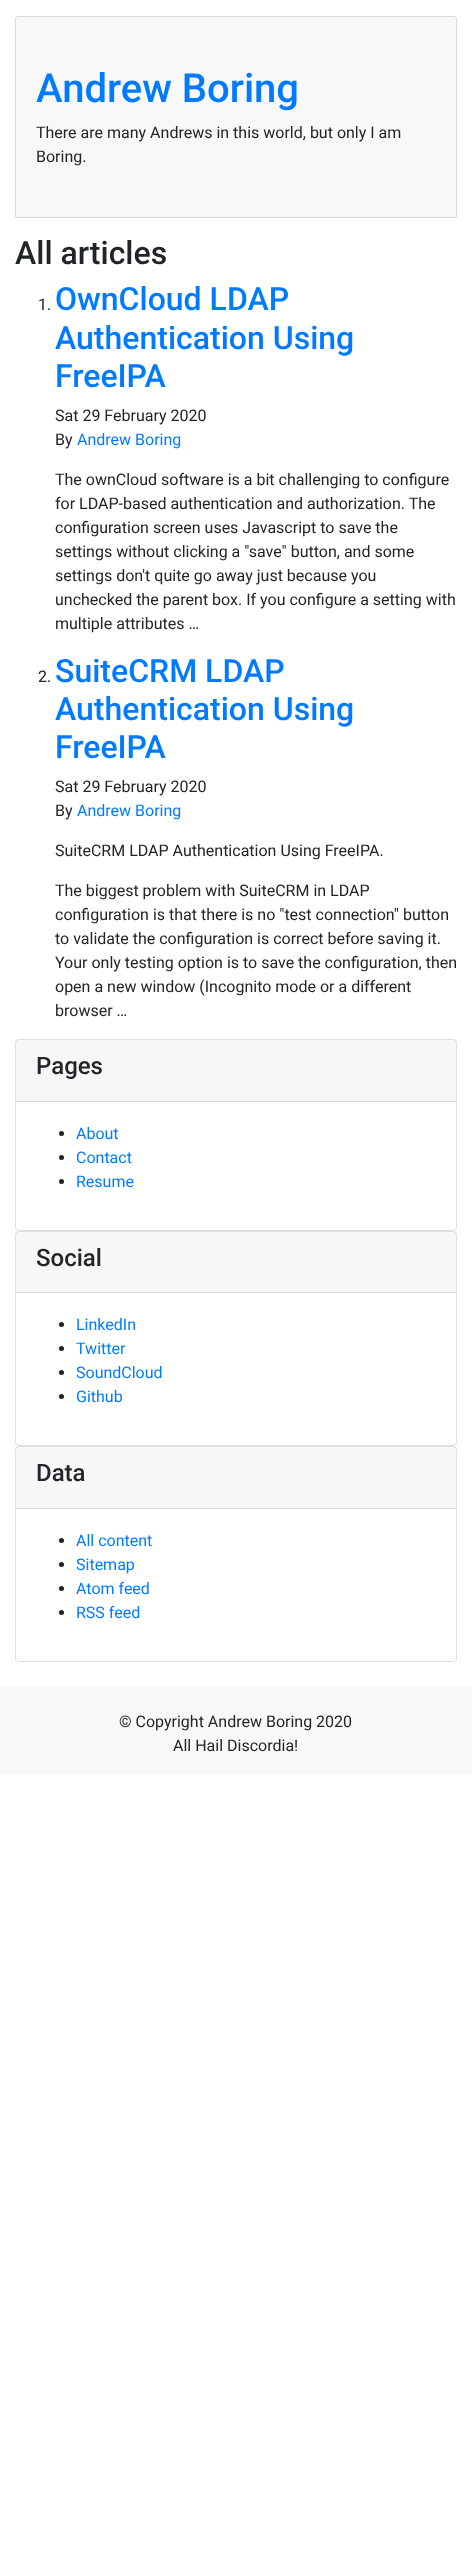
(async () => {
  const canvas = document.querySelector("canvas");
  canvas.width = 472;
  canvas.height = 2554;
  const ctx = canvas.getContext("2d");
  ctx.miterLimit = 4;
  ctx.fontKerning = "normal";

  ctx.fillStyle = "#ffffff";
  ctx.fillRect(0, 0, 472, 2554);
  ctx.fillStyle = "#f8f8f8";
  ctx.beginPath();
  ctx.roundRect(15, 16, 442, 202, [3, 3, 0, 0]);
  ctx.fill();
  ctx.beginPath();
  ctx.roundRect(15.5, 16.5, 441, 201, [2.5, 2.5, 0, 0]);
  ctx.strokeStyle = "rgba(0, 0, 0, 0.12)";
  ctx.stroke();
  ctx.beginPath();
  ctx.roundRect(15.5, 1039.5, 441, 191, 3.5);
  ctx.strokeStyle = "#dfdfdf";
  ctx.stroke();
  ctx.fillStyle = "rgba(0, 0, 0, 0.03)";
  ctx.fillRect(16, 1040, 440, 61);
  ctx.fillStyle = "#d8d8d8";
  ctx.fillRect(16, 1101, 440, 1);
  ctx.fillStyle = "#212529";
  ctx.beginPath();
  ctx.arc(61.5, 1133.5, 2.5, 0, Math.PI * 2);
  ctx.fill();
  ctx.beginPath();
  ctx.arc(61.5, 1157.5, 2.5, 0, Math.PI * 2);
  ctx.fill();
  ctx.beginPath();
  ctx.arc(61.5, 1181.5, 2.5, 0, Math.PI * 2);
  ctx.fill();
  ctx.beginPath();
  ctx.roundRect(15.5, 1231.5, 441, 214, 3.5);
  ctx.stroke();
  ctx.fillStyle = "rgba(0, 0, 0, 0.03)";
  ctx.fillRect(16, 1232, 440, 60);
  ctx.fillStyle = "#d8d8d8";
  ctx.fillRect(16, 1292, 440, 1);
  ctx.fillStyle = "#212529";
  ctx.beginPath();
  ctx.arc(61.5, 1324.5, 2.5, 0, Math.PI * 2);
  ctx.fill();
  ctx.beginPath();
  ctx.arc(61.5, 1348.5, 2.5, 0, Math.PI * 2);
  ctx.fill();
  ctx.beginPath();
  ctx.arc(61.5, 1372.5, 2.5, 0, Math.PI * 2);
  ctx.fill();
  ctx.beginPath();
  ctx.arc(61.5, 1396.5, 2.5, 0, Math.PI * 2);
  ctx.fill();
  ctx.beginPath();
  ctx.roundRect(15.5, 1446.5, 441, 215, 3.5);
  ctx.stroke();
  ctx.fillStyle = "rgba(0, 0, 0, 0.03)";
  ctx.fillRect(16, 1447, 440, 61);
  ctx.fillStyle = "#d8d8d8";
  ctx.fillRect(16, 1508, 440, 1);
  ctx.fillStyle = "#212529";
  ctx.beginPath();
  ctx.arc(61.5, 1540.5, 2.5, 0, Math.PI * 2);
  ctx.fill();
  ctx.beginPath();
  ctx.arc(61.5, 1564.5, 2.5, 0, Math.PI * 2);
  ctx.fill();
  ctx.beginPath();
  ctx.arc(61.5, 1588.5, 2.5, 0, Math.PI * 2);
  ctx.fill();
  ctx.beginPath();
  ctx.arc(61.5, 1612.5, 2.5, 0, Math.PI * 2);
  ctx.fill();
  ctx.fillStyle = "#f8f8f8";
  ctx.fillRect(0, 1686, 472, 88);
  ctx.font = "500 40px Roboto";
  ctx.fillStyle = "#007bff";
  ctx.fillText("Andrew Boring", 36, 102);
  ctx.font = "16px Roboto";
  ctx.fillStyle = "#212529";
  ctx.fillText("There are many Andrews in this world, but only I am", 36, 138);
  ctx.fillText("Boring.", 36, 162);
  ctx.font = "500 32px Roboto";
  ctx.fillText("All articles", 15, 264);
  ctx.font = "16px Roboto";
  ctx.fillText("1.", 38, 310);
  ctx.font = "500 32px Roboto";
  ctx.fillStyle = "#007bff";
  for (const [text, x, y] of [
    ["OwnCloud LDAP", 55, 310],
    ["Authentication Using", 55, 349],
    ["FreeIPA", 55, 387],
  ]) {
    ctx.fillText(text, x, y);
  }
  ctx.font = "16px Roboto";
  ctx.fillStyle = "#212529";
  ctx.fillText("Sat 29 February 2020", 55, 421);
  ctx.fillText("By", 55, 445);
  ctx.fillStyle = "#007bff";
  ctx.fillText("Andrew Boring", 77, 445);
  ctx.fillStyle = "#212529";
  for (const [text, x, y] of [
    ["The ownCloud software is a bit challenging to configure", 55, 485],
    ["for LDAP-based authentication and authorization. The", 55, 509],
    ["configuration screen uses Javascript to save the", 55, 533],
    ["settings without clicking a \"save\" button, and some", 55, 557],
    ["settings don't quite go away just because you", 55, 581],
    ["unchecked the parent box. If you configure a setting with", 55, 605],
    ["multiple attributes …", 55, 629],
    ["2.", 38, 682],
  ]) {
    ctx.fillText(text, x, y);
  }
  ctx.font = "500 32px Roboto";
  ctx.fillStyle = "#007bff";
  for (const [text, x, y] of [
    ["SuiteCRM LDAP", 55, 682],
    ["Authentication Using", 55, 720],
    ["FreeIPA", 55, 758],
  ]) {
    ctx.fillText(text, x, y);
  }
  ctx.font = "16px Roboto";
  ctx.fillStyle = "#212529";
  ctx.fillText("Sat 29 February 2020", 55, 792);
  ctx.fillText("By", 55, 816);
  ctx.fillStyle = "#007bff";
  ctx.fillText("Andrew Boring", 77, 816);
  ctx.fillStyle = "#212529";
  for (const [text, x, y] of [
    ["SuiteCRM LDAP Authentication Using FreeIPA.", 55, 856],
    ["The biggest problem with SuiteCRM in LDAP", 55, 896],
    ["configuration is that there is no \"test connection\" button", 55, 920],
    ["to validate the configuration is correct before saving it.", 55, 944],
    ["Your only testing option is to save the configuration, then", 55, 968],
    ["open a new window (Incognito mode or a different", 55, 992],
    ["browser …", 55, 1016],
  ]) {
    ctx.fillText(text, x, y);
  }
  ctx.font = "500 24px Roboto";
  ctx.fillText("Pages", 36, 1074);
  ctx.font = "16px Roboto";
  ctx.fillStyle = "#007bff";
  for (const [text, x, y] of [
    ["About", 76, 1139],
    ["Contact", 76, 1163],
    ["Resume", 76, 1187],
  ]) {
    ctx.fillText(text, x, y);
  }
  ctx.font = "500 24px Roboto";
  ctx.fillStyle = "#212529";
  ctx.fillText("Social", 36, 1266);
  ctx.font = "16px Roboto";
  ctx.fillStyle = "#007bff";
  for (const [text, x, y] of [
    ["LinkedIn", 76, 1330],
    ["Twitter", 76, 1354],
    ["SoundCloud", 76, 1378],
    ["Github", 76, 1402],
  ]) {
    ctx.fillText(text, x, y);
  }
  ctx.font = "500 24px Roboto";
  ctx.fillStyle = "#212529";
  ctx.fillText("Data", 36, 1481);
  ctx.font = "16px Roboto";
  ctx.fillStyle = "#007bff";
  for (const [text, x, y] of [
    ["All content", 76, 1546],
    ["Sitemap", 76, 1570],
    ["Atom feed", 76, 1594],
    ["RSS feed", 76, 1618],
  ]) {
    ctx.fillText(text, x, y);
  }
  ctx.fillStyle = "#212529";
  ctx.fillText("© Copyright Andrew Boring 2020", 119, 1727);
  ctx.fillText("All Hail Discordia!", 173, 1751);
})();
